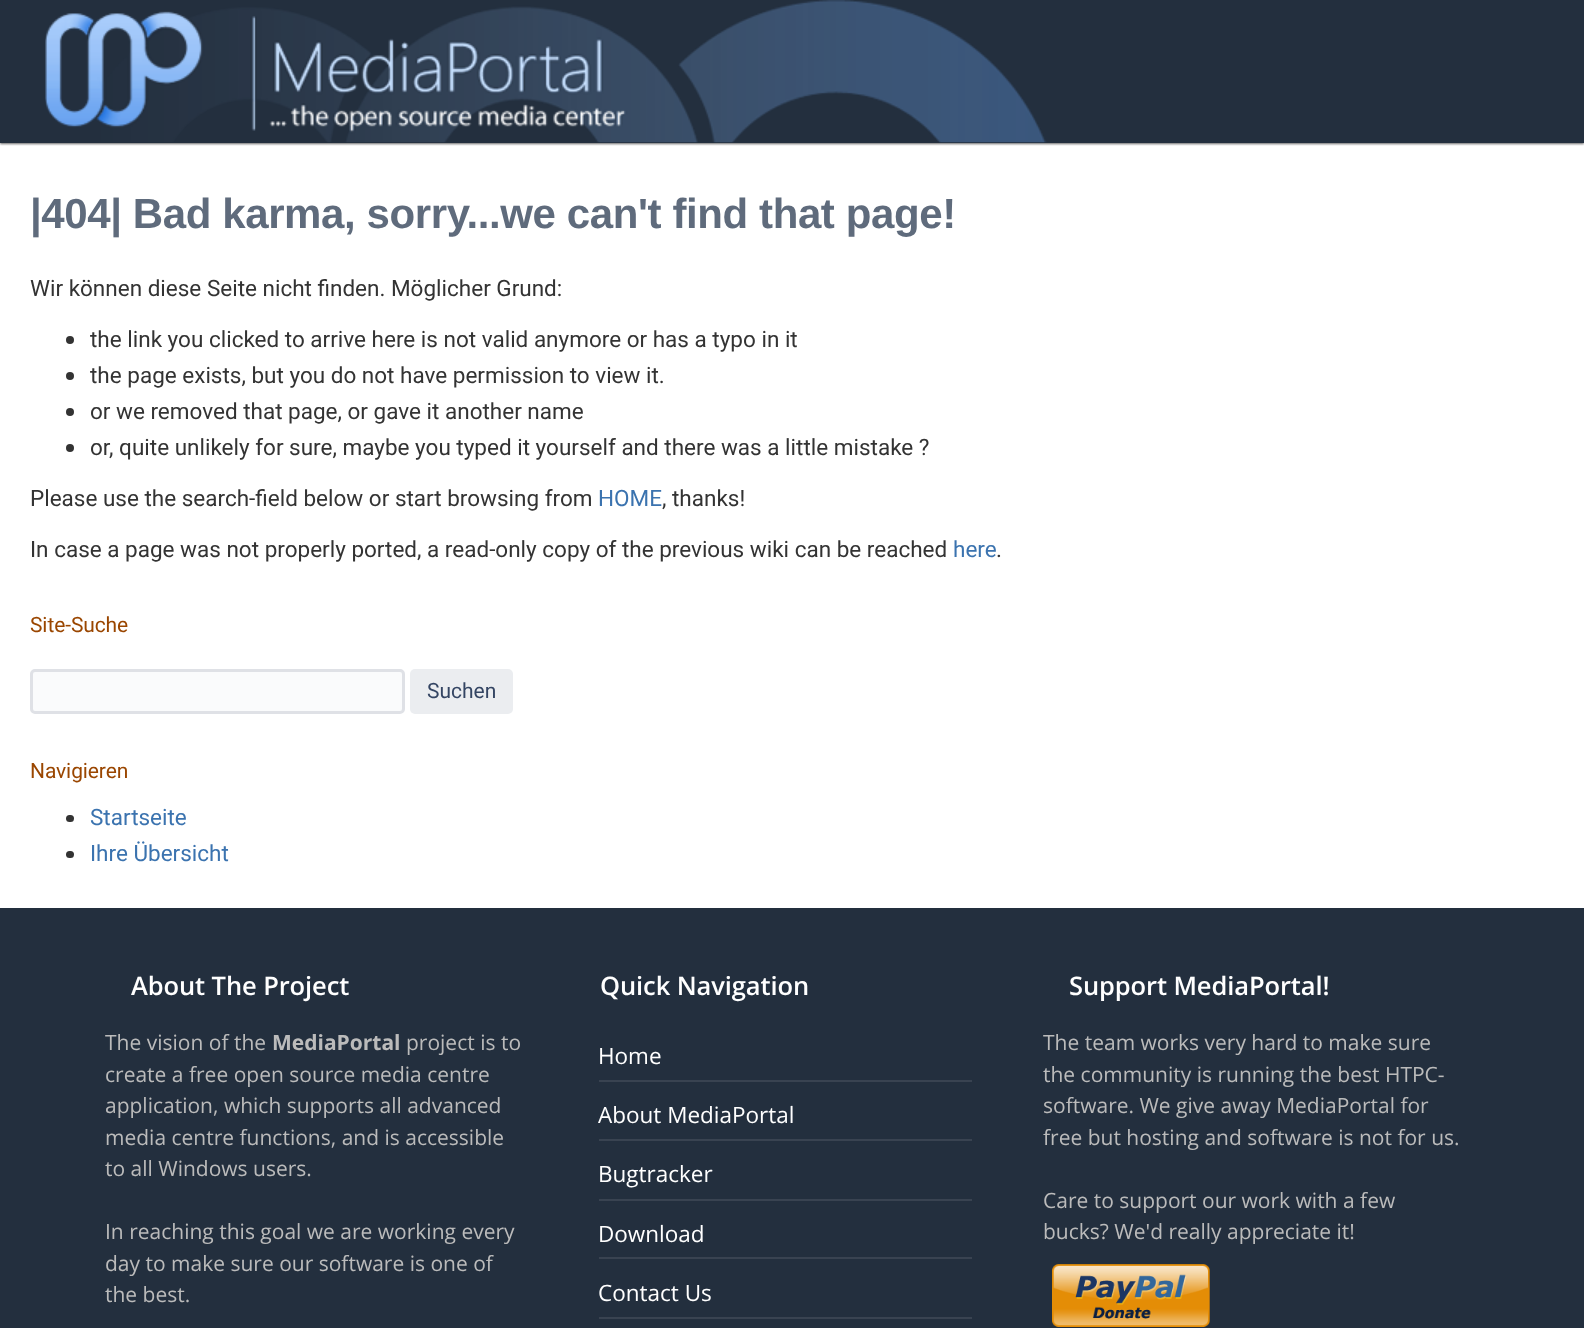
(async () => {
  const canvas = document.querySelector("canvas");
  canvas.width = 1584;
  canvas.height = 1328;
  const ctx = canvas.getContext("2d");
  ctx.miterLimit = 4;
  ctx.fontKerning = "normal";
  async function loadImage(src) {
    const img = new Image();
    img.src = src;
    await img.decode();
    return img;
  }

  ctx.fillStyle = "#ffffff";
  ctx.fillRect(0, 0, 1584, 1328);
  ctx.fillStyle = "#666666";
  ctx.filter = "blur(1px)";
  ctx.beginPath();
  ctx.rect(0, 2, 1584, 142);
  ctx.fill();
  ctx.filter = "none";
  ctx.fillStyle = "#232f3e";
  ctx.fillRect(0, 0, 1584, 143);
  ctx.drawImage(await loadImage("img/1.png"), 45, 0, 1002, 143);
  ctx.fillStyle = "#333333";
  ctx.beginPath();
  ctx.arc(70, 340, 4, 0, Math.PI * 2);
  ctx.fill();
  ctx.beginPath();
  ctx.arc(70, 376, 4, 0, Math.PI * 2);
  ctx.fill();
  ctx.beginPath();
  ctx.arc(70, 412, 4, 0, Math.PI * 2);
  ctx.fill();
  ctx.beginPath();
  ctx.arc(70, 448, 4, 0, Math.PI * 2);
  ctx.fill();
  ctx.fillStyle = "#fafbfc";
  ctx.beginPath();
  ctx.roundRect(31.5, 670.5, 372, 42, 3.5);
  ctx.fill();
  ctx.strokeStyle = "#dfe1e6";
  ctx.lineWidth = 3;
  ctx.stroke();
  ctx.fillStyle = "#ebedf0";
  ctx.beginPath();
  ctx.roundRect(410, 669, 103, 45, 5);
  ctx.fill();
  ctx.fillStyle = "#333333";
  ctx.beginPath();
  ctx.roundRect(66, 815, 8, 7, 3.5);
  ctx.fill();
  ctx.beginPath();
  ctx.roundRect(66, 851, 8, 7, 3.5);
  ctx.fill();
  for (const [x, y, w, h, color] of [
    [0, 908, 1584, 420, "#232f3e"],
    [599, 1080, 373, 2, "#394351"],
    [599, 1139, 373, 2, "#394351"],
    [599, 1199, 373, 2, "#394351"],
    [599, 1257, 373, 2, "#394351"],
    [599, 1317, 373, 2, "#394351"],
  ]) {
    ctx.fillStyle = color;
    ctx.fillRect(x, y, w, h);
  }
  ctx.drawImage(await loadImage("img/2.png"), 1052, 1264, 158, 63);
  ctx.letterSpacing = "-0.4px";
  ctx.font = "bold 42px Liberation Sans";
  ctx.fillStyle = "#5f6b7c";
  ctx.fillText("|404| Bad karma, sorry...we can't find that page!", 30, 228);
  ctx.letterSpacing = "0px";
  ctx.font = "22.5px Roboto";
  ctx.fillStyle = "#333333";
  for (const [text, x, y] of [
    ["Wir können diese Seite nicht finden. Möglicher Grund:", 30, 296],
    ["the link you clicked to arrive here is not valid anymore or has a typo in it", 90, 347],
    ["the page exists, but you do not have permission to view it.", 90, 383],
    ["or we removed that page, or gave it another name", 90, 419],
    ["or, quite unlikely for sure, maybe you typed it yourself and there was a little mistake ?", 90, 455],
    ["Please use the search-field below or start browsing from", 30, 506],
  ]) {
    ctx.fillText(text, x, y);
  }
  ctx.fillStyle = "#3b73af";
  ctx.fillText("HOME", 598, 506);
  ctx.fillStyle = "#333333";
  ctx.fillText(", thanks!", 662, 506);
  ctx.fillText("In case a page was not properly ported, a read-only copy of the previous wiki can be reached", 30, 557);
  ctx.fillStyle = "#3b73af";
  ctx.fillText("here", 953, 557);
  ctx.fillStyle = "#333333";
  ctx.fillText(".", 996, 557);
  ctx.letterSpacing = "-0.1px";
  ctx.font = "21px Roboto";
  ctx.fillStyle = "#9a4600";
  ctx.fillText("Site-Suche", 30, 632);
  ctx.letterSpacing = "0px";
  ctx.fillStyle = "#344563";
  ctx.fillText("Suchen", 427, 698);
  ctx.letterSpacing = "-0.1px";
  ctx.fillStyle = "#9a4600";
  ctx.fillText("Navigieren", 30, 778);
  ctx.letterSpacing = "0px";
  ctx.font = "22.5px Roboto";
  ctx.fillStyle = "#3b73af";
  ctx.fillText("Startseite", 90, 825);
  ctx.fillText("Ihre Übersicht", 90, 861);
  ctx.letterSpacing = "-0.1px";
  ctx.font = "600 25.5px Open Sans";
  ctx.fillStyle = "#ffffff";
  ctx.fillText("About The Project", 131, 995);
  ctx.letterSpacing = "0px";
  ctx.font = "21px Open Sans";
  ctx.fillStyle = "#bbbbbb";
  ctx.fillText("The vision of the", 105, 1050);
  ctx.font = "bold 21px Open Sans";
  ctx.fillText("MediaPortal", 272, 1050);
  ctx.font = "21px Open Sans";
  for (const [text, x, y] of [
    ["project is to", 406, 1050],
    ["create a free open source media centre", 105, 1082],
    ["application, which supports all advanced", 105, 1113],
    ["media centre functions, and is accessible", 105, 1145],
    ["to all Windows users.", 105, 1176],
    ["In reaching this goal we are working every", 105, 1239],
    ["day to make sure our software is one of", 105, 1271],
    ["the best.", 105, 1302],
  ]) {
    ctx.fillText(text, x, y);
  }
  ctx.letterSpacing = "-0.1px";
  ctx.font = "600 25.5px Open Sans";
  ctx.fillStyle = "#ffffff";
  ctx.fillText("Quick Navigation", 600, 995);
  ctx.letterSpacing = "0px";
  ctx.font = "22.5px Open Sans";
  for (const [text, x, y] of [
    ["Home", 598, 1064],
    ["About MediaPortal", 598, 1123],
    ["Bugtracker", 598, 1182],
    ["Download", 598, 1242],
    ["Contact Us", 598, 1301],
  ]) {
    ctx.fillText(text, x, y);
  }
  ctx.letterSpacing = "-0.1px";
  ctx.font = "600 25.5px Open Sans";
  ctx.fillText("Support MediaPortal!", 1069, 995);
  ctx.letterSpacing = "0px";
  ctx.font = "21px Open Sans";
  ctx.fillStyle = "#bbbbbb";
  for (const [text, x, y] of [
    ["The team works very hard to make sure", 1043, 1050],
    ["the community is running the best HTPC-", 1043, 1082],
    ["software. We give away MediaPortal for", 1043, 1113],
    ["free but hosting and software is not for us.", 1043, 1145],
    ["Care to support our work with a few", 1043, 1208],
    ["bucks? We'd really appreciate it!", 1043, 1239],
  ]) {
    ctx.fillText(text, x, y);
  }
})();
